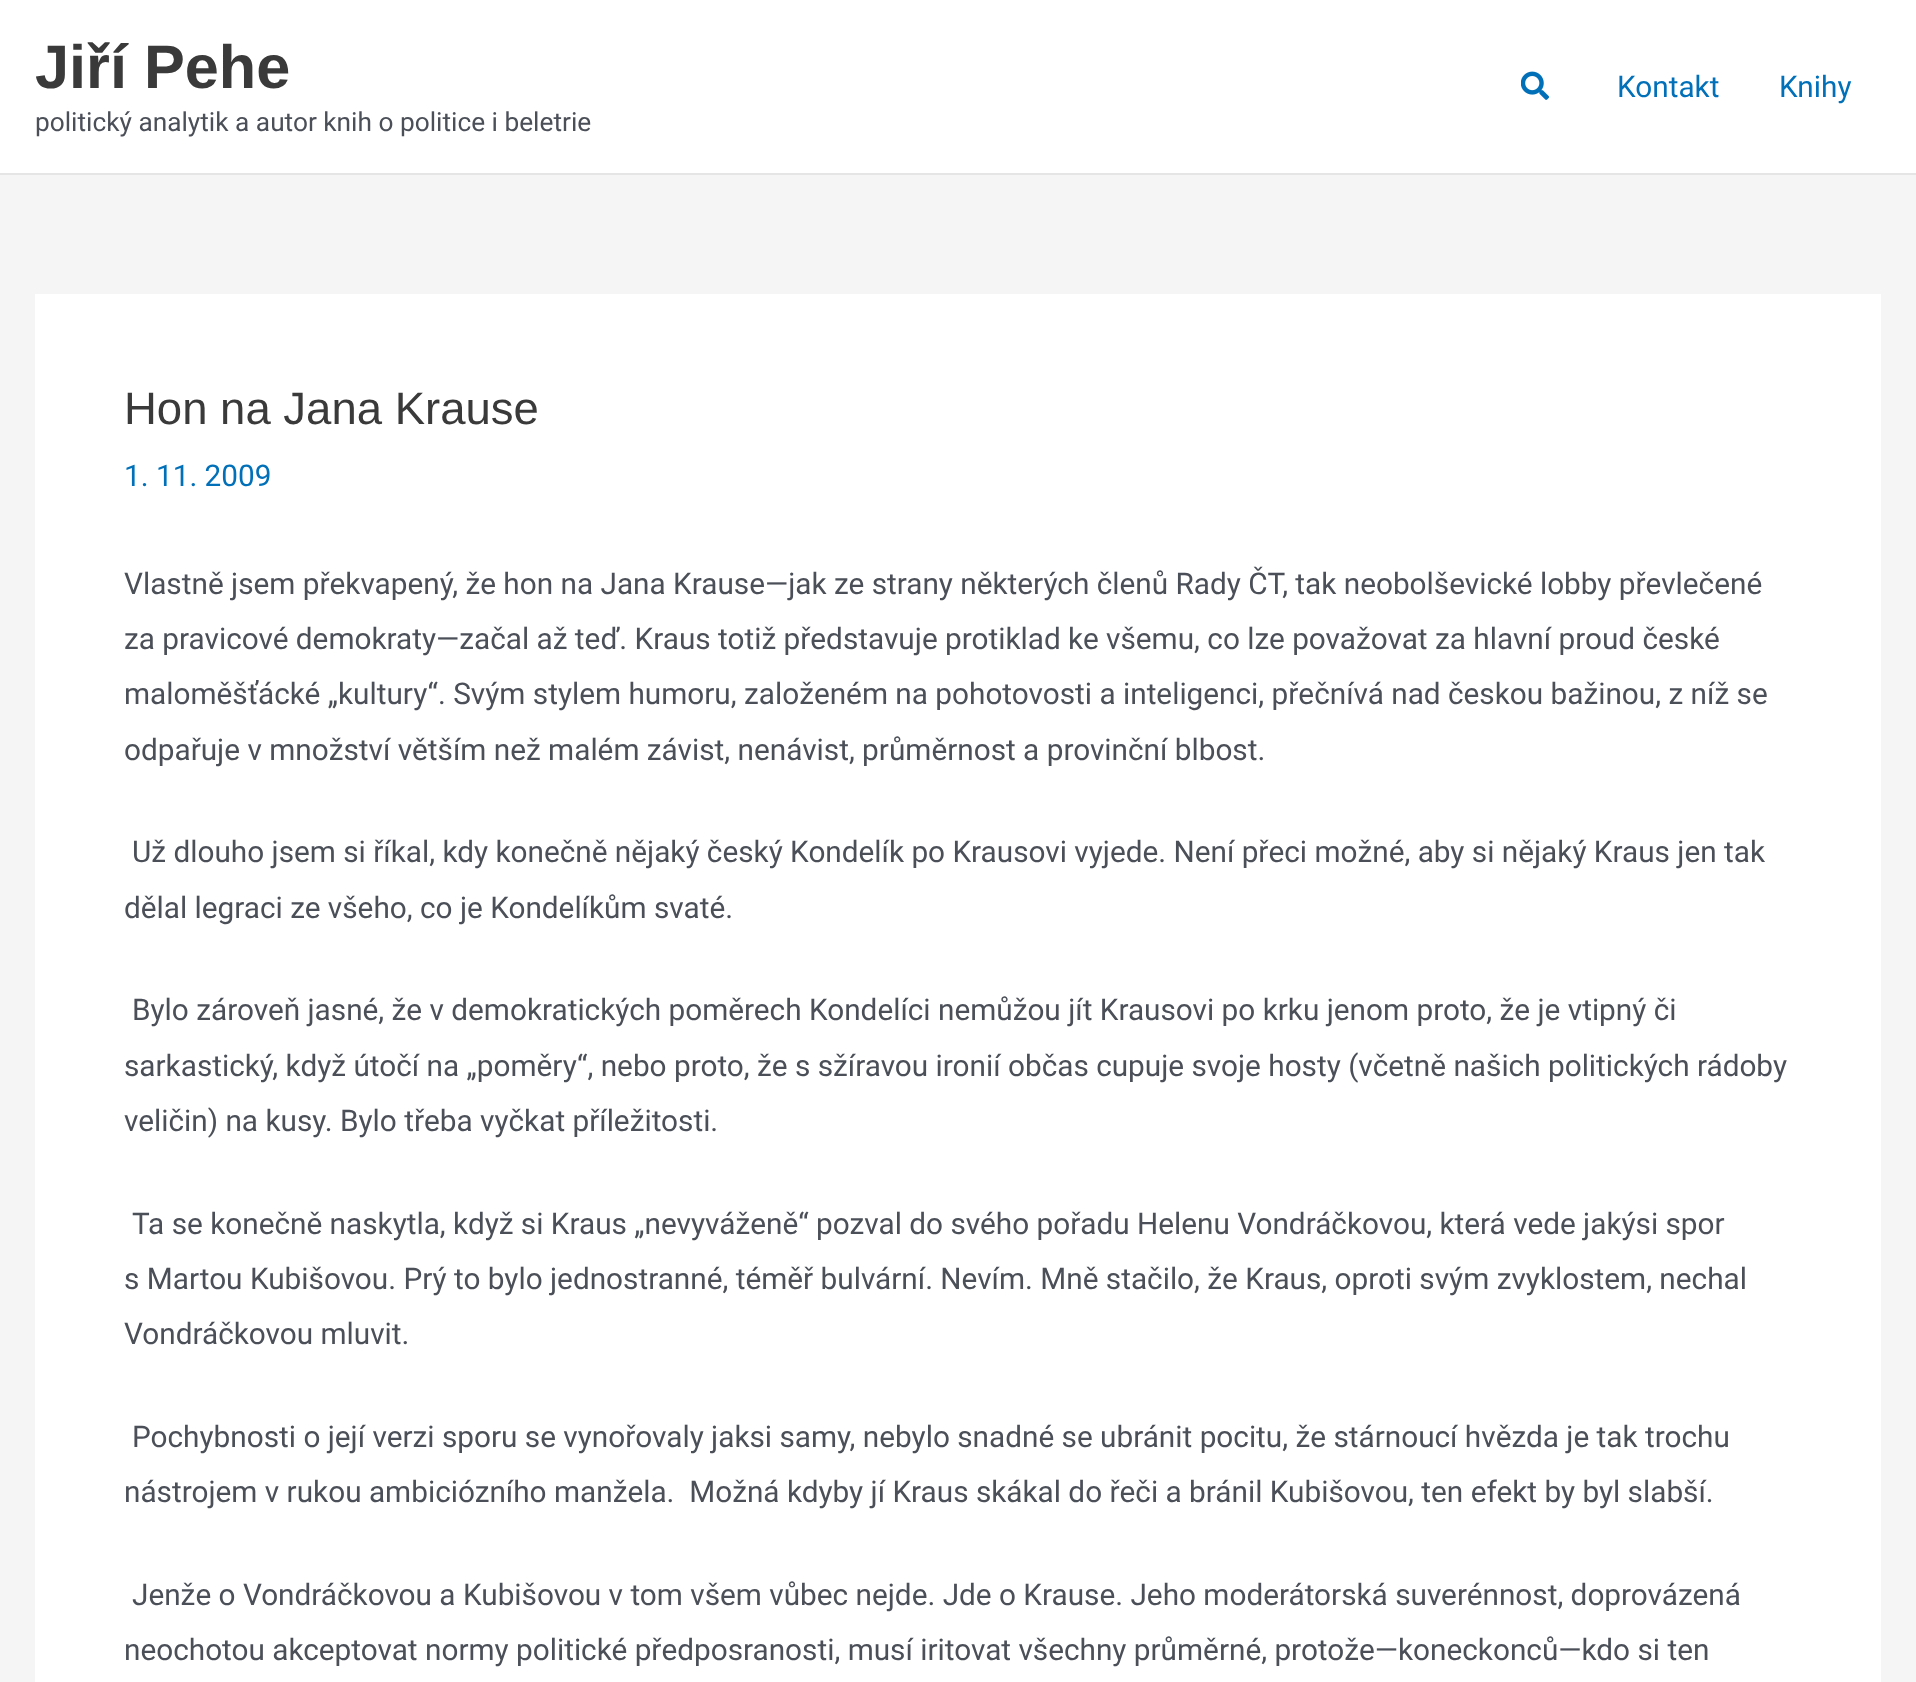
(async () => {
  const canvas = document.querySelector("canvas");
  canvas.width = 1916;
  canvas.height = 1682;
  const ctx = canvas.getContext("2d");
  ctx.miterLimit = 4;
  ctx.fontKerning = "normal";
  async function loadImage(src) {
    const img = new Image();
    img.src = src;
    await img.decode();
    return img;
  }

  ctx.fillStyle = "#f5f5f5";
  ctx.fillRect(0, 0, 1916, 1682);
  ctx.fillStyle = "#ffffff";
  ctx.fillRect(0, 0, 1916, 173);
  ctx.fillStyle = "#e5e5e5";
  ctx.fillRect(0, 173, 1916, 2);
  ctx.drawImage(await loadImage("img/1.png"), 1521, 71, 28, 29);
  ctx.fillStyle = "#ffffff";
  ctx.fillRect(35, 294, 1846, 1388);
  ctx.font = "bold 61.25px Liberation Sans";
  ctx.fillStyle = "#3a3a3a";
  ctx.fillText("Jiří Pehe", 35, 88);
  ctx.font = "26.25px Roboto";
  ctx.fillStyle = "#4b4f58";
  ctx.fillText("politický analytik a autor knih o politice i beletrie", 35, 131);
  ctx.font = "29.75px Roboto";
  ctx.fillStyle = "#0170b9";
  ctx.fillText("Kontakt", 1617, 97);
  ctx.fillText("Knihy", 1779, 97);
  ctx.font = "45.5px Liberation Sans";
  ctx.fillStyle = "#3a3a3a";
  ctx.fillText("Hon na Jana Krause", 124, 424);
  ctx.font = "29.75px Roboto";
  ctx.fillStyle = "#0170b9";
  ctx.fillText("1. 11. 2009", 124, 486);
  ctx.fillStyle = "#4b4f58";
  for (const [text, x, y] of [
    ["Vlastně jsem překvapený, že hon na Jana Krause—jak ze strany některých členů Rady ČT, tak neobolševické lobby převlečené", 124, 594],
    ["za pravicové demokraty—začal až teď. Kraus totiž představuje protiklad ke všemu, co lze považovat za hlavní proud české", 124, 649],
    ["maloměšťácké „kultury“. Svým stylem humoru, založeném na pohotovosti a inteligenci, přečnívá nad českou bažinou, z níž se", 124, 704],
    ["odpařuje v množství větším než malém závist, nenávist, průměrnost a provinční blbost.", 124, 760],
    ["Už dlouho jsem si říkal, kdy konečně nějaký český Kondelík po Krausovi vyjede. Není přeci možné, aby si nějaký Kraus jen tak", 132, 862],
    ["dělal legraci ze všeho, co je Kondelíkům svaté.", 124, 918],
    ["Bylo zároveň jasné, že v demokratických poměrech Kondelíci nemůžou jít Krausovi po krku jenom proto, že je vtipný či", 132, 1020],
    ["sarkastický, když útočí na „poměry“, nebo proto, že s sžíravou ironií občas cupuje svoje hosty (včetně našich politických rádoby", 124, 1076],
    ["veličin) na kusy. Bylo třeba vyčkat příležitosti.", 124, 1131],
    ["Ta se konečně naskytla, když si Kraus „nevyváženě“ pozval do svého pořadu Helenu Vondráčkovou, která vede jakýsi spor", 132, 1234],
    ["s Martou Kubišovou. Prý to bylo jednostranné, téměř bulvární. Nevím. Mně stačilo, že Kraus, oproti svým zvyklostem, nechal", 124, 1289],
    ["Vondráčkovou mluvit.", 124, 1344],
    ["Pochybnosti o její verzi sporu se vynořovaly jaksi samy, nebylo snadné se ubránit pocitu, že stárnoucí hvězda je tak trochu", 132, 1447],
    ["nástrojem v rukou ambiciózního manžela.  Možná kdyby jí Kraus skákal do řeči a bránil Kubišovou, ten efekt by byl slabší.", 124, 1502],
    ["Jenže o Vondráčkovou a Kubišovou v tom všem vůbec nejde. Jde o Krause. Jeho moderátorská suverénnost, doprovázená", 132, 1605],
    ["neochotou akceptovat normy politické předposranosti, musí iritovat všechny průměrné, protože—koneckonců—kdo si ten", 124, 1660],
  ]) {
    ctx.fillText(text, x, y);
  }
})();
